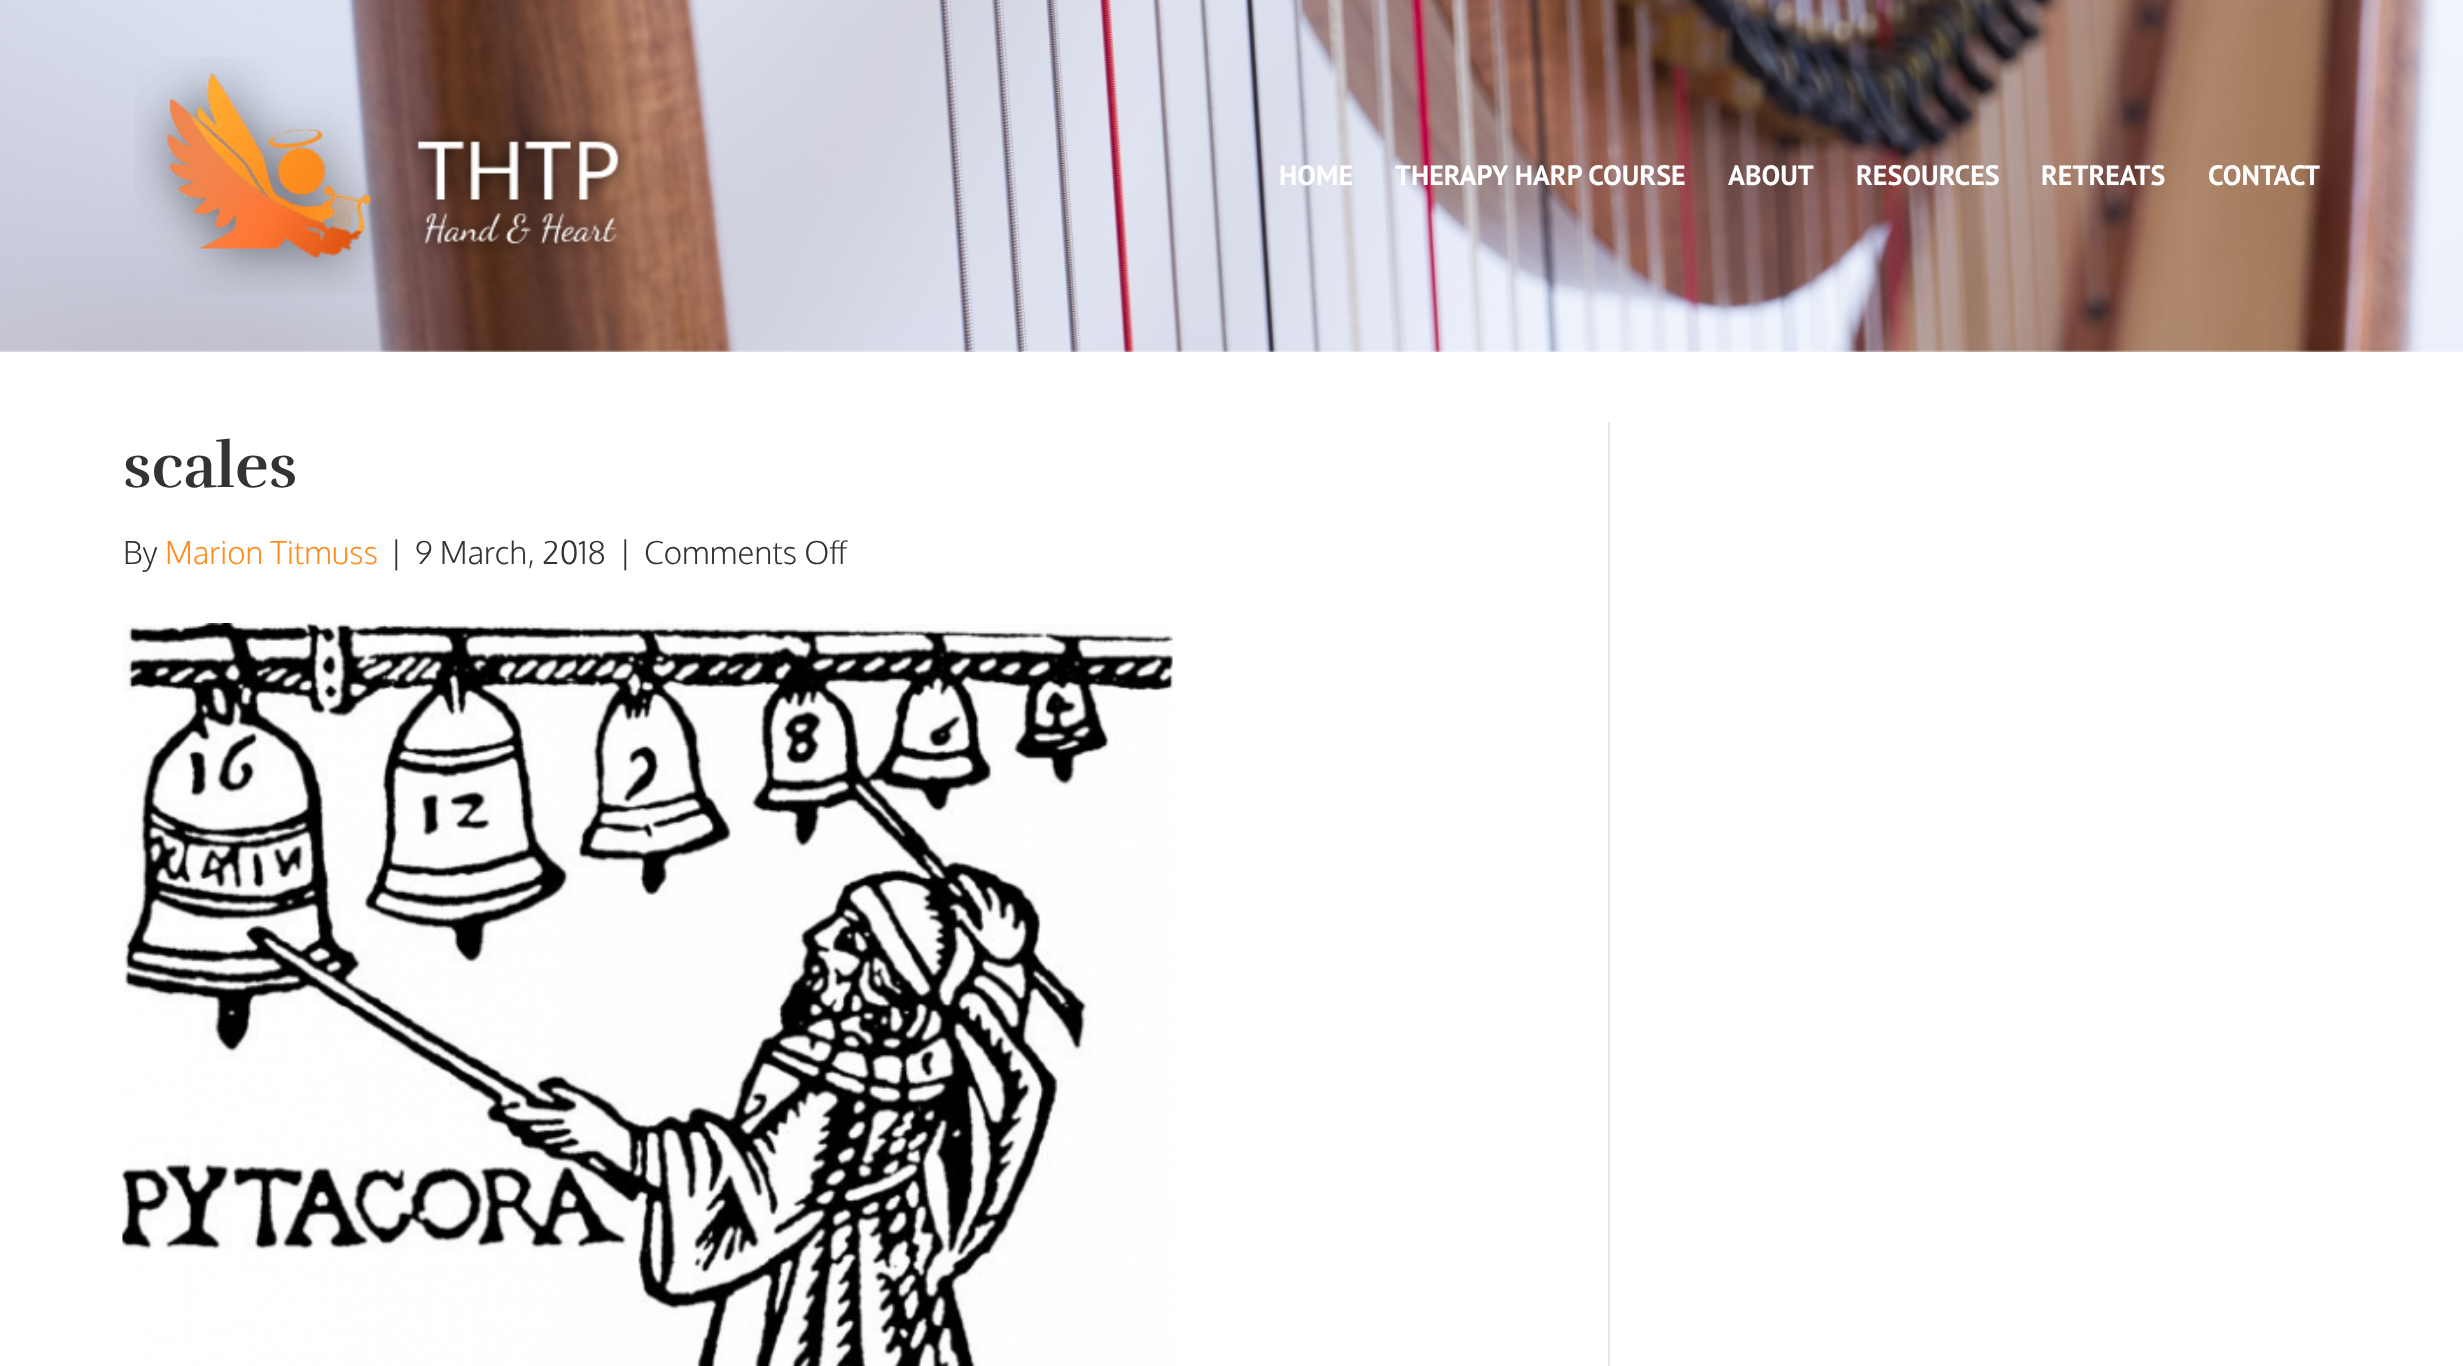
(async () => {
  const canvas = document.querySelector("canvas");
  canvas.width = 2463;
  canvas.height = 1366;
  const ctx = canvas.getContext("2d");
  ctx.miterLimit = 4;
  ctx.fontKerning = "normal";
  async function loadImage(src) {
    const img = new Image();
    img.src = src;
    await img.decode();
    return img;
  }

  ctx.fillStyle = "#ffffff";
  ctx.fillRect(0, 0, 2463, 1366);
  ctx.drawImage(await loadImage("img/1.png"), 0, 0, 2463, 352);
  ctx.fillStyle = "rgba(255, 255, 255, 0.13)";
  ctx.fillRect(0, 350, 2463, 2);
  ctx.drawImage(await loadImage("img/2.png"), 134, 57, 497, 238);
  ctx.fillStyle = "#e6e6e6";
  ctx.fillRect(1608, 422, 2, 944);
  ctx.drawImage(await loadImage("img/3.png"), 122, 623, 1051, 743);
  ctx.font = "bold 28px PT Sans";
  ctx.fillStyle = "#ffffff";
  for (const [text, x, y] of [
    ["HOME", 1279, 185],
    ["THERAPY HARP COURSE", 1395, 185],
    ["ABOUT", 1728, 185],
    ["RESOURCES", 1856, 185],
    ["RETREATS", 2041, 185],
    ["CONTACT", 2208, 185],
  ]) {
    ctx.fillText(text, x, y);
  }
  ctx.font = "bold 63px Rufina";
  ctx.fillStyle = "#333333";
  ctx.fillText("scales", 123, 487);
  ctx.font = "300 31.5px Oxygen";
  ctx.fillText("By", 123, 564);
  ctx.fillStyle = "#fe8c1f";
  ctx.fillText("Marion Titmuss", 165, 564);
  ctx.fillStyle = "#333333";
  for (const [text, x, y] of [
    ["|", 390, 564],
    ["9 March, 2018", 415, 564],
    ["|", 619, 564],
    ["Comments Off", 644, 564],
  ]) {
    ctx.fillText(text, x, y);
  }
})();
